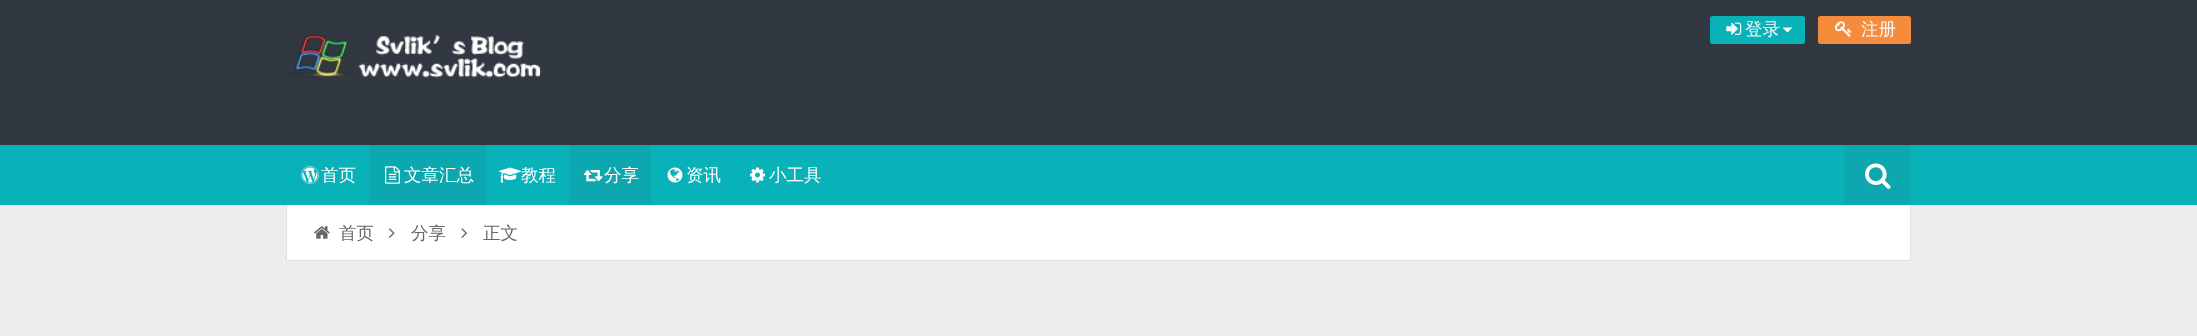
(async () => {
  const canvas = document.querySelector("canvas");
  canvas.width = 2197;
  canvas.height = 336;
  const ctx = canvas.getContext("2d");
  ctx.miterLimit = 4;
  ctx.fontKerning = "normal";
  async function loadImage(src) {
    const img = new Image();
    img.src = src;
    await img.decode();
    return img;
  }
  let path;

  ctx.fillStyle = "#ededed";
  ctx.fillRect(0, 0, 2197, 336);
  ctx.fillStyle = "#323841";
  ctx.fillRect(0, 0, 2197, 145);
  ctx.fillStyle = "#09b1b9";
  ctx.beginPath();
  ctx.roundRect(1710, 16, 95, 28, 2.5);
  ctx.fill();
  ctx.drawImage(await loadImage("img/1.png"), 1726, 22, 16, 13);
  ctx.fillStyle = "#ffffff";
  path = new Path2D("M1782.5 27.5H1792.5L1787.5 32.5Z");
  ctx.fill(path);
  ctx.fillStyle = "#f58b3c";
  ctx.beginPath();
  ctx.roundRect(1818, 16, 93, 28, 2.5);
  ctx.fill();
  ctx.drawImage(await loadImage("img/2.png"), 1835, 21, 17, 16);
  ctx.drawImage(await loadImage("img/3.png"), 288, 34, 253, 44);
  ctx.fillStyle = "#09b1b9";
  ctx.fillRect(0, 145, 2197, 60);
  ctx.fillStyle = "#0da7af";
  ctx.fillRect(1844, 145, 67, 60);
  ctx.drawImage(await loadImage("img/4.png"), 1865, 163, 26, 26);
  ctx.drawImage(await loadImage("img/5.png"), 301, 166, 18, 18);
  ctx.fillRect(369, 145, 117, 60);
  ctx.drawImage(await loadImage("img/6.png"), 385, 166, 15, 18);
  ctx.drawImage(await loadImage("img/7.png"), 498, 167, 24, 16);
  ctx.fillRect(569, 145, 82, 60);
  ctx.drawImage(await loadImage("img/8.png"), 583, 170, 20, 12);
  ctx.drawImage(await loadImage("img/9.png"), 667, 167, 16, 16);
  ctx.drawImage(await loadImage("img/10.png"), 750, 167, 15, 16);
  for (const [x, y, w, h, color] of [
    [287, 205, 1623, 55, "#ffffff"],
    [1910, 205, 1, 56, "#e1e1e1"],
    [286, 260, 1625, 1, "#e1e1e1"],
    [286, 205, 1, 56, "#e1e1e1"],
  ]) {
    ctx.fillStyle = color;
    ctx.fillRect(x, y, w, h);
  }
  ctx.drawImage(await loadImage("img/11.png"), 314, 226, 16, 13);
  ctx.drawImage(await loadImage("img/12.png"), 388, 228, 7, 10);
  ctx.drawImage(await loadImage("img/13.png"), 461, 228, 6, 10);
  ctx.font = "500 17.5px WenQuanYi Zen Hei";
  ctx.fillStyle = "#f8f8f8";
  ctx.fillText("登录", 1745, 35);
  ctx.fillText("注册", 1861, 35);
  ctx.fillStyle = "#ffffff";
  for (const [text, x, y] of [
    ["首页", 321, 181],
    ["文章汇总", 404, 181],
    ["教程", 521, 181],
    ["分享", 604, 181],
    ["资讯", 686, 181],
    ["小工具", 769, 181],
  ]) {
    ctx.fillText(text, x, y);
  }
  ctx.fillStyle = "#666666";
  for (const [text, x, y] of [
    ["首页", 339, 239],
    ["分享", 411, 239],
    ["正文", 483, 239],
  ]) {
    ctx.fillText(text, x, y);
  }
})();
